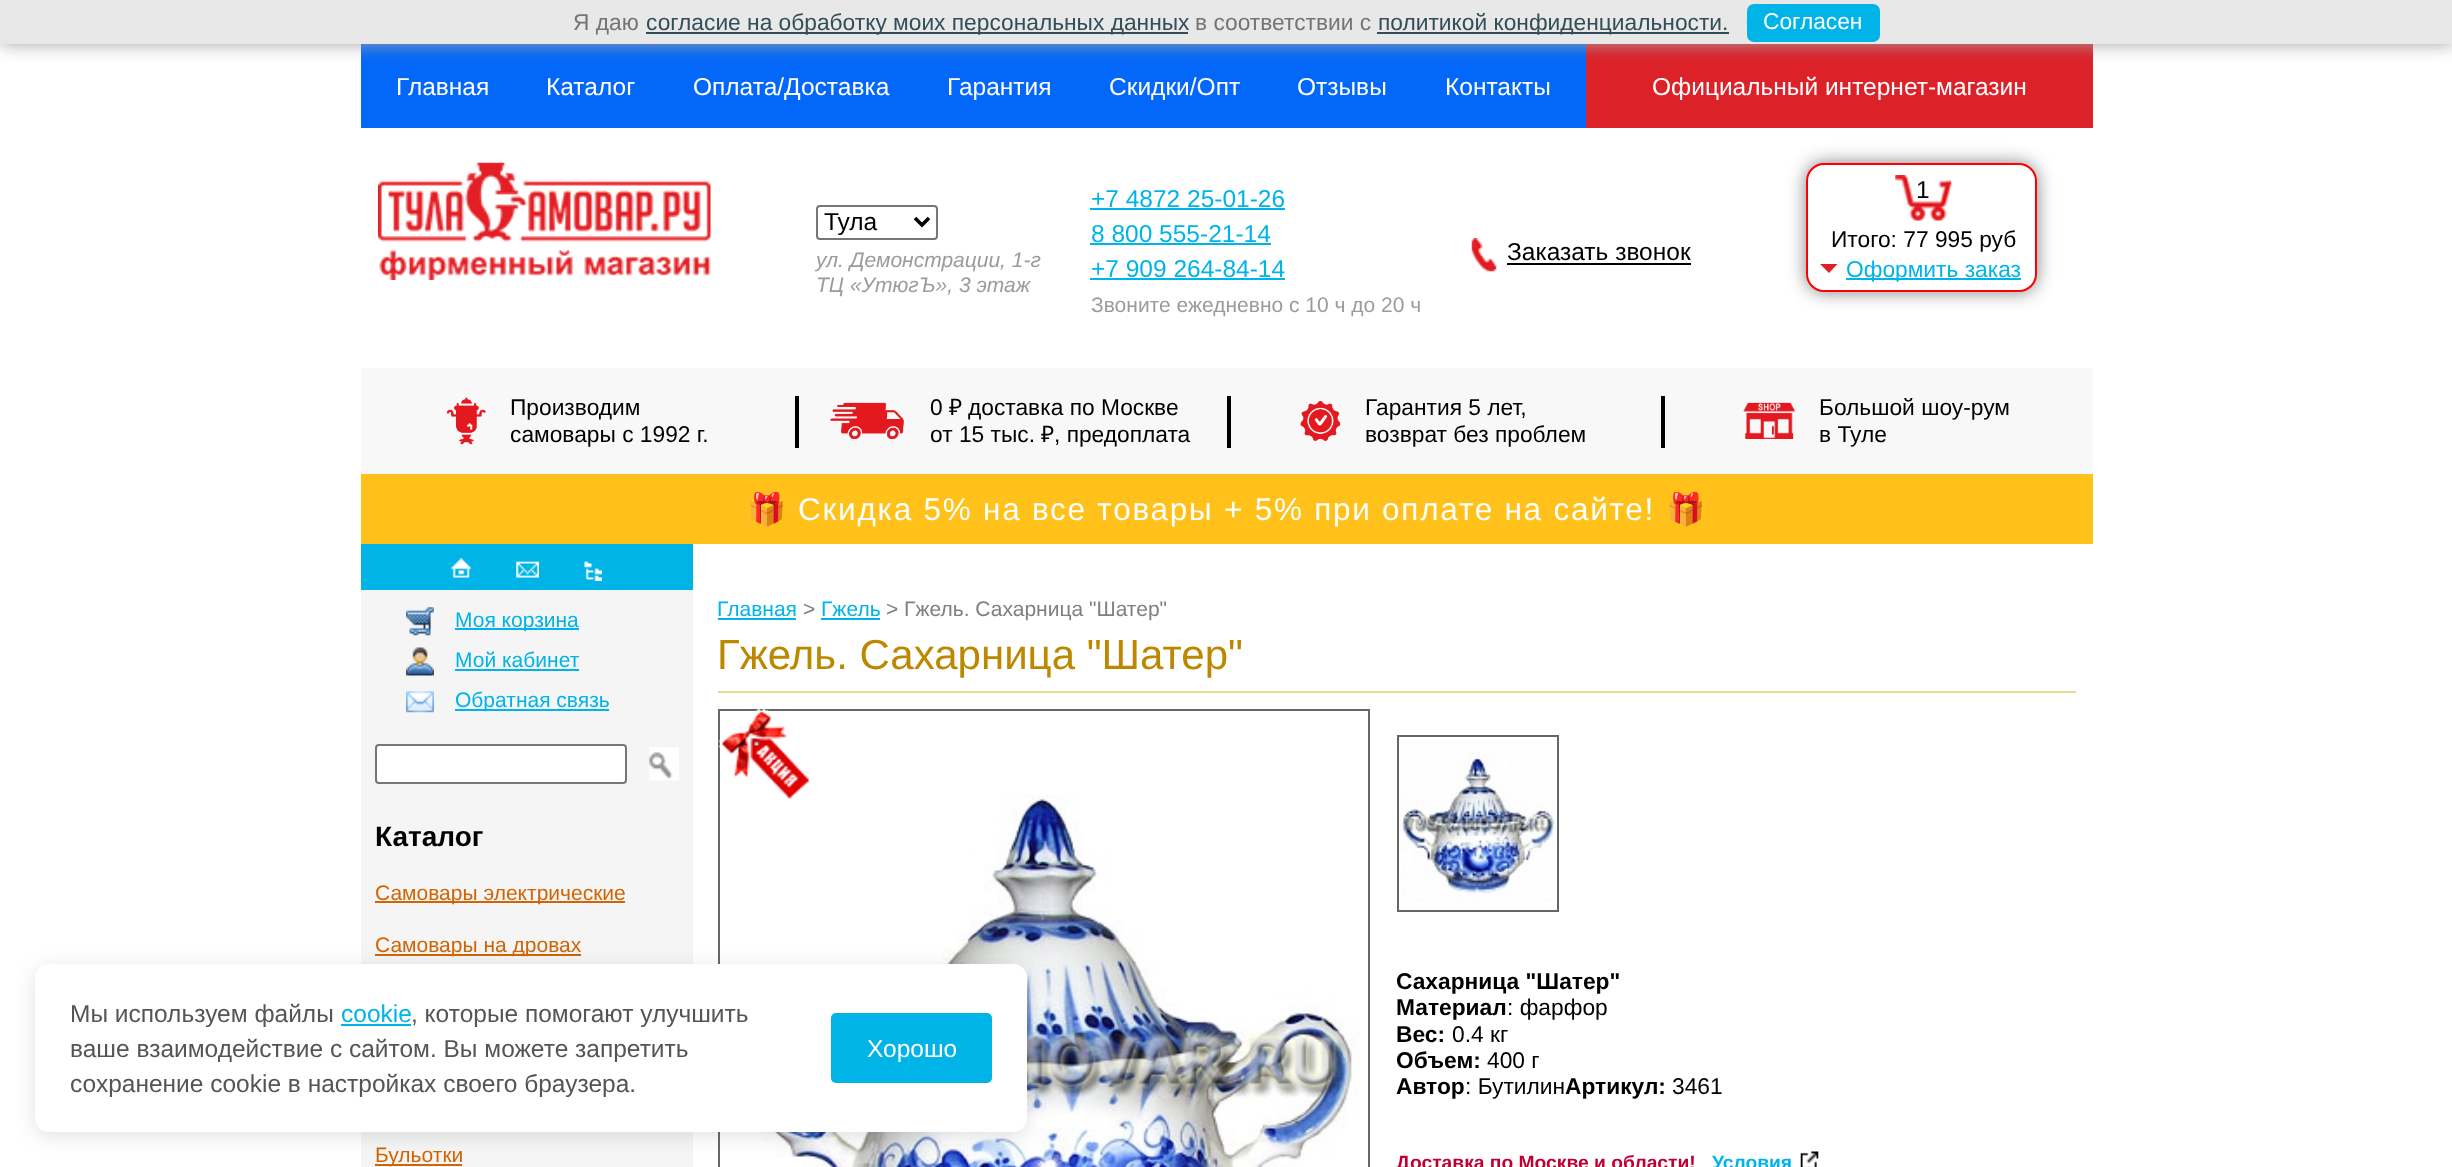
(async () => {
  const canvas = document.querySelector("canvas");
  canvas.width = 2452;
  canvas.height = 1167;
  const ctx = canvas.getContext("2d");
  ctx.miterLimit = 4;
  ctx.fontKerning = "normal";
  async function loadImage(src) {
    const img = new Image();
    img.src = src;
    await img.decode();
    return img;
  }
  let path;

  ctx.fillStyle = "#ffffff";
  ctx.fillRect(0, 0, 2452, 1167);
  ctx.fillStyle = "#0367f9";
  ctx.fillRect(361, 44, 1225, 84);
  ctx.fillStyle = "#dc2128";
  ctx.fillRect(1586, 44, 507, 84);
  ctx.fillStyle = "#a2a2a2";
  ctx.filter = "blur(9px)";
  ctx.beginPath();
  ctx.rect(0, 0, 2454, 44);
  ctx.fill();
  ctx.filter = "none";
  for (const [x, y, w, h, color] of [
    [0, 0, 2452, 44, "#e8e8e8"],
    [646, 32, 542, 2, "#324e59"],
    [1377, 32, 352, 2, "#324e59"],
  ]) {
    ctx.fillStyle = color;
    ctx.fillRect(x, y, w, h);
  }
  ctx.fillStyle = "#00b4e8";
  ctx.beginPath();
  ctx.roundRect(1747, 4, 133, 38, 7);
  ctx.fill();
  path = new Path2D("M1760.5 3.5V42L1746.5 23Z");
  ctx.fill(path);
  ctx.drawImage(await loadImage("img/1.png"), 378, 162, 333, 118);
  ctx.beginPath();
  ctx.roundRect(817, 206, 120, 33, 3);
  ctx.strokeStyle = "#767676";
  ctx.lineWidth = 2;
  ctx.stroke();
  path = new Path2D("M915 218L922 225L929 218");
  ctx.strokeStyle = "#000000";
  ctx.lineWidth = 3.5;
  ctx.stroke(path);
  for (const [x, y, w, h, color] of [
    [1090, 208, 195, 2, "#00b4e8"],
    [1090, 243, 181, 2, "#00b4e8"],
    [1090, 278, 195, 2, "#00b4e8"],
  ]) {
    ctx.fillStyle = color;
    ctx.fillRect(x, y, w, h);
  }
  ctx.drawImage(await loadImage("img/2.png"), 1471, 238, 26, 34);
  ctx.fillStyle = "#000000";
  ctx.fillRect(1507, 263, 184, 2);
  ctx.fillStyle = "rgba(0, 0, 0, 0.49)";
  ctx.filter = "blur(9px)";
  ctx.beginPath();
  ctx.roundRect(1806, 163, 231, 129, 18);
  ctx.fill();
  ctx.filter = "none";
  ctx.fillStyle = "#ffffff";
  ctx.beginPath();
  ctx.roundRect(1807, 164, 229, 127, 17);
  ctx.fill();
  ctx.strokeStyle = "#ff0000";
  ctx.lineWidth = 2;
  ctx.stroke();
  ctx.drawImage(await loadImage("img/3.png"), 1895, 175, 57, 46);
  ctx.fillStyle = "#dc2128";
  path = new Path2D("M1820 264H1837.5L1829 273Z");
  ctx.fill(path);
  ctx.fillStyle = "#00b4e8";
  ctx.fillRect(1846, 278, 175, 2);
  ctx.fillStyle = "#f8f8f8";
  ctx.fillRect(361, 368, 1732, 106);
  ctx.drawImage(await loadImage("img/4.png"), 446, 397, 40, 48);
  ctx.fillStyle = "#000000";
  ctx.fillRect(795, 396, 4, 52);
  ctx.drawImage(await loadImage("img/5.png"), 830, 402, 74, 37);
  ctx.fillRect(1227, 396, 4, 52);
  ctx.drawImage(await loadImage("img/6.png"), 1300, 401, 41, 40);
  ctx.fillRect(1661, 396, 4, 52);
  ctx.drawImage(await loadImage("img/7.png"), 1743, 402, 52, 37);
  ctx.fillStyle = "#ffc11a";
  ctx.fillRect(361, 474, 1732, 70);
  ctx.fillStyle = "#00b4e8";
  ctx.fillRect(361, 544, 332, 46);
  ctx.drawImage(await loadImage("img/8.png"), 451, 558, 20, 20);
  ctx.drawImage(await loadImage("img/9.png"), 516, 561, 23, 17);
  ctx.drawImage(await loadImage("img/10.png"), 584, 561, 18, 20);
  ctx.fillStyle = "#f5f5f5";
  ctx.fillRect(361, 590, 332, 577);
  ctx.drawImage(await loadImage("img/11.png"), 406, 607, 28, 29);
  ctx.fillStyle = "#00b4e8";
  ctx.fillRect(455, 628, 124, 2);
  ctx.drawImage(await loadImage("img/12.png"), 406, 647, 28, 29);
  ctx.fillRect(455, 669, 124, 2);
  ctx.drawImage(await loadImage("img/13.png"), 406, 691, 28, 22);
  ctx.fillRect(455, 709, 154, 2);
  ctx.fillStyle = "#ffffff";
  ctx.beginPath();
  ctx.roundRect(376, 745, 250, 38, 3);
  ctx.fill();
  ctx.strokeStyle = "#767676";
  ctx.stroke();
  ctx.drawImage(await loadImage("img/14.png"), 649, 747, 30, 34);
  for (const [x, y, w, h, color] of [
    [375, 901, 250, 2, "#d16504"],
    [375, 954, 206, 2, "#d16504"],
    [375, 1164, 87, 2, "#d16504"],
    [718, 618, 78, 2, "#00b4e8"],
    [821, 618, 59, 2, "#00b4e8"],
    [718, 691, 1358, 2, "#e9d98f"],
  ]) {
    ctx.fillStyle = color;
    ctx.fillRect(x, y, w, h);
  }
  ctx.drawImage(await loadImage("img/15.png"), 733, 794, 627, 373);
  ctx.strokeStyle = "#666666";
  ctx.strokeRect(719, 710, 650, 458);
  ctx.drawImage(await loadImage("img/16.png"), 718, 709, 93, 90);
  ctx.drawImage(await loadImage("img/17.png"), 1399, 737, 158, 166);
  ctx.strokeRect(1398, 736, 160, 175);
  ctx.drawImage(await loadImage("img/18.png"), 1800, 1151, 19, 16);
  ctx.fillStyle = "rgba(42, 51, 62, 0.15)";
  ctx.filter = "blur(9.5px)";
  ctx.beginPath();
  ctx.roundRect(35, 968, 992, 168, 14);
  ctx.fill();
  ctx.filter = "none";
  ctx.fillStyle = "#ffffff";
  ctx.beginPath();
  ctx.roundRect(35, 964, 992, 168, 14);
  ctx.fill();
  ctx.fillStyle = "#00b4e8";
  ctx.fillRect(341, 1024, 70, 2);
  ctx.beginPath();
  ctx.roundRect(831, 1013, 161, 70, 5);
  ctx.fill();
  ctx.font = "22.75px Liberation Sans";
  ctx.fillStyle = "#757575";
  ctx.fillText("Я даю", 573, 30);
  ctx.fillStyle = "#324e59";
  ctx.fillText("согласие на обработку моих персональных данных", 646, 30);
  ctx.fillStyle = "#757575";
  ctx.fillText("в соответствии с", 1195, 30);
  ctx.fillStyle = "#324e59";
  ctx.fillText("политикой конфиденциальности.", 1378, 30);
  ctx.fillStyle = "#ffffff";
  ctx.fillText("Согласен", 1763, 29);
  ctx.font = "24.5px Liberation Sans";
  for (const [text, x, y] of [
    ["Главная", 396, 95],
    ["Каталог", 546, 95],
    ["Оплата/Доставка", 693, 95],
    ["Гарантия", 947, 95],
    ["Скидки/Опт", 1109, 95],
    ["Отзывы", 1297, 95],
    ["Контакты", 1445, 95],
    ["Официальный интернет-магазин", 1652, 95],
  ]) {
    ctx.fillText(text, x, y);
  }
  ctx.fillStyle = "#000000";
  ctx.fillText("Тула", 824, 230);
  ctx.font = "italic 21px Liberation Sans";
  ctx.fillStyle = "#9b9b9b";
  ctx.fillText("ул. Демонстрации, 1-г", 816, 267);
  ctx.fillText("ТЦ «УтюгЪ», 3 этаж", 816, 292);
  ctx.font = "24.5px Liberation Sans";
  ctx.fillStyle = "#00b4e8";
  for (const [text, x, y] of [
    ["+7 4872 25-01-26", 1091, 207],
    ["8 800 555-21-14", 1091, 242],
    ["+7 909 264-84-14", 1091, 277],
  ]) {
    ctx.fillText(text, x, y);
  }
  ctx.font = "21px Liberation Sans";
  ctx.fillStyle = "#9b9b9b";
  ctx.fillText("Звоните ежедневно с 10 ч до 20 ч", 1091, 312);
  ctx.font = "24.5px Liberation Sans";
  ctx.fillStyle = "#000000";
  ctx.fillText("Заказать звонок", 1507, 260);
  ctx.fillText("1", 1916, 198);
  ctx.font = "22.75px Liberation Sans";
  ctx.fillText("Итого: 77 995 руб", 1831, 247);
  ctx.fillStyle = "#00b4e8";
  ctx.fillText("Оформить заказ", 1846, 277);
  ctx.fillStyle = "#000000";
  for (const [text, x, y] of [
    ["Производим", 510, 415],
    ["самовары с 1992 г.", 510, 442],
    ["0", 930, 415],
  ]) {
    ctx.fillText(text, x, y);
  }
  ctx.font = "22.75px Noto Sans";
  ctx.fillText("₽", 949, 415);
  ctx.font = "22.75px Liberation Sans";
  ctx.fillText("доставка по Москве", 968, 415);
  ctx.fillText("от 15 тыс.", 930, 442);
  ctx.font = "22.75px Noto Sans";
  ctx.fillText("₽", 1041, 442);
  ctx.font = "22.75px Liberation Sans";
  for (const [text, x, y] of [
    [", предоплата", 1054, 442],
    ["Гарантия 5 лет,", 1365, 415],
    ["возврат без проблем", 1365, 442],
    ["Большой шоу-рум", 1819, 415],
    ["в Туле", 1819, 442],
  ]) {
    ctx.fillText(text, x, y);
  }
  ctx.letterSpacing = "1.75px";
  ctx.font = "31.5px Noto Color Emoji";
  ctx.fillStyle = "#ffffff";
  ctx.fillText("🎁", 747, 520);
  ctx.font = "31.5px Liberation Sans";
  ctx.fillText("Скидка 5% на все товары + 5% при оплате на сайте!", 798, 520);
  ctx.font = "31.5px Noto Color Emoji";
  ctx.fillText("🎁", 1666, 520);
  ctx.letterSpacing = "0px";
  ctx.font = "21px Liberation Sans";
  ctx.fillStyle = "#00b4e8";
  for (const [text, x, y] of [
    ["Моя корзина", 455, 627],
    ["Мой кабинет", 455, 667],
    ["Обратная связь", 455, 707],
  ]) {
    ctx.fillText(text, x, y);
  }
  ctx.font = "bold 28px Liberation Sans";
  ctx.fillStyle = "#000000";
  ctx.fillText("Каталог", 375, 846);
  ctx.font = "21px Liberation Sans";
  ctx.fillStyle = "#d16504";
  for (const [text, x, y] of [
    ["Самовары электрические", 375, 900],
    ["Самовары на дровах", 375, 952],
    ["Бульотки", 375, 1162],
  ]) {
    ctx.fillText(text, x, y);
  }
  ctx.fillStyle = "#00b4e8";
  ctx.fillText("Главная", 717, 616);
  ctx.fillStyle = "#808080";
  ctx.fillText(">", 803, 616);
  ctx.fillStyle = "#00b4e8";
  ctx.fillText("Гжель", 821, 616);
  ctx.fillStyle = "#808080";
  ctx.fillText("> Гжель. Сахарница \"Шатер\"", 886, 616);
  ctx.font = "42px Liberation Sans";
  ctx.fillStyle = "#bc8800";
  ctx.fillText("Гжель. Сахарница \"Шатер\"", 717, 669);
  ctx.font = "bold 22.75px Liberation Sans";
  ctx.fillStyle = "#000000";
  ctx.fillText("Сахарница \"Шатер\"", 1396, 989);
  ctx.fillText("Материал", 1396, 1015);
  ctx.font = "22.75px Liberation Sans";
  ctx.fillText(": фарфор", 1507, 1015);
  ctx.font = "bold 22.75px Liberation Sans";
  ctx.fillText("Вес:", 1396, 1042);
  ctx.font = "22.75px Liberation Sans";
  ctx.fillText("0.4 кг", 1452, 1042);
  ctx.font = "bold 22.75px Liberation Sans";
  ctx.fillText("Объем:", 1396, 1068);
  ctx.font = "22.75px Liberation Sans";
  ctx.fillText("400 г", 1487, 1068);
  ctx.font = "bold 22.75px Liberation Sans";
  ctx.fillText("Автор", 1396, 1094);
  ctx.font = "22.75px Liberation Sans";
  ctx.fillText(": Бутилин", 1465, 1094);
  ctx.font = "bold 22.75px Liberation Sans";
  ctx.fillText("Артикул:", 1565, 1094);
  ctx.font = "22.75px Liberation Sans";
  ctx.fillText("3461", 1672, 1094);
  ctx.font = "bold 19.25px Liberation Sans";
  ctx.fillStyle = "#bf0034";
  ctx.fillText("Доставка по Москве и области!", 1396, 1169);
  ctx.fillStyle = "#00b4e8";
  ctx.fillText("Условия", 1712, 1169);
  ctx.font = "24.5px Liberation Sans";
  ctx.fillStyle = "#555555";
  ctx.fillText("Мы используем файлы", 70, 1022);
  ctx.fillStyle = "#00b4e8";
  ctx.fillText("cookie", 341, 1022);
  ctx.fillStyle = "#555555";
  for (const [text, x, y] of [
    [", которые помогают улучшить", 411, 1022],
    ["ваше взаимодействие с сайтом. Вы можете запретить", 70, 1057],
    ["сохранение cookie в настройках своего браузера.", 70, 1092],
  ]) {
    ctx.fillText(text, x, y);
  }
  ctx.fillStyle = "#ffffff";
  ctx.fillText("Хорошо", 867, 1057);
})();
